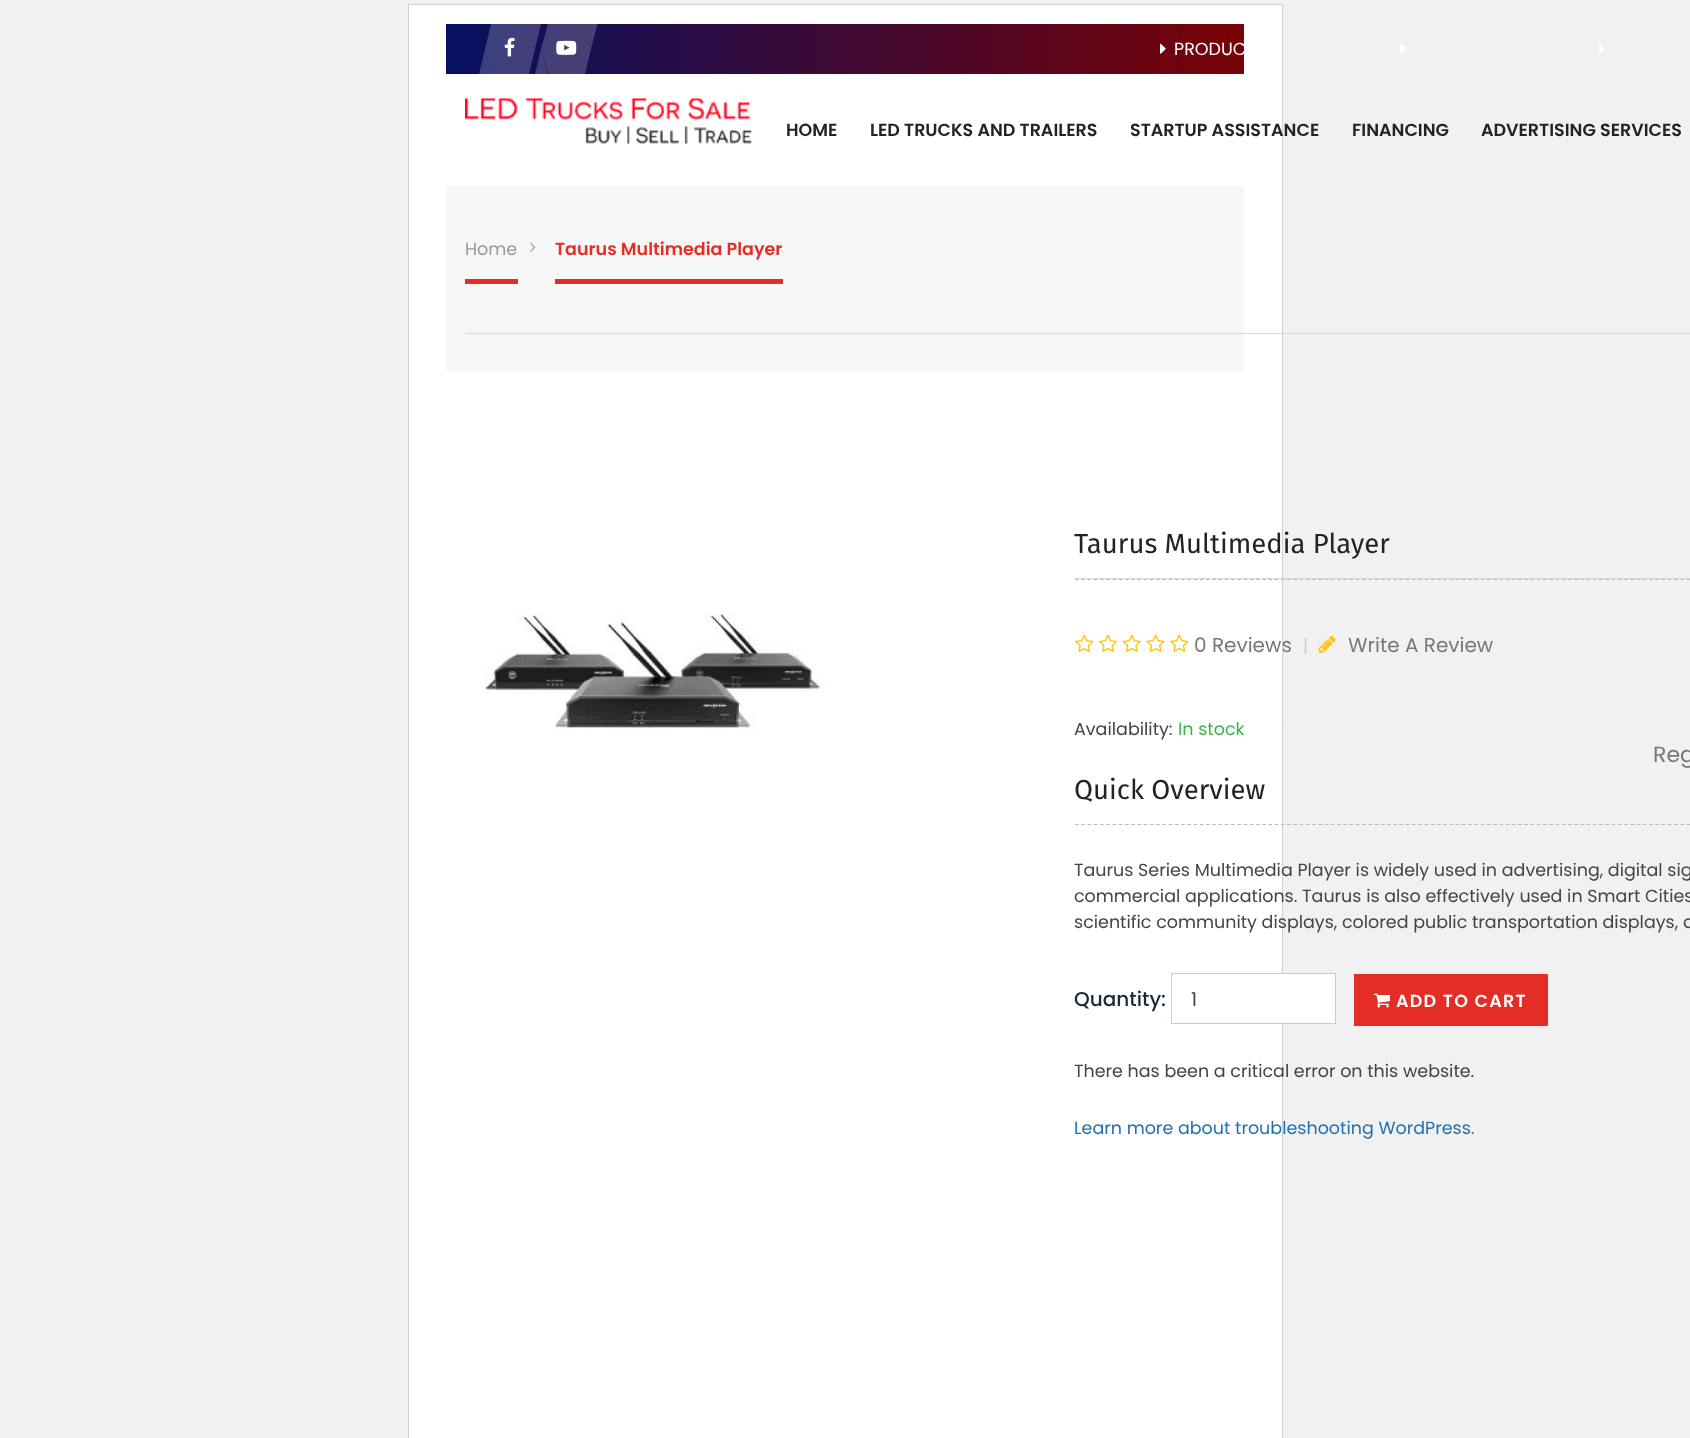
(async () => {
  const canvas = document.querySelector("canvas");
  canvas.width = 1690;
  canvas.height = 1438;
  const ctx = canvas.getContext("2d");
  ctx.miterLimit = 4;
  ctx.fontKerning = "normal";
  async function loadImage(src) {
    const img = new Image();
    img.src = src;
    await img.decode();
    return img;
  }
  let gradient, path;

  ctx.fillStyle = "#f1f1f1";
  ctx.fillRect(0, 0, 1690, 1438);
  ctx.fillStyle = "#ffffff";
  ctx.beginPath();
  ctx.rect(408.5, 4.5, 874, 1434);
  ctx.fill();
  ctx.strokeStyle = "#ccd0d4";
  ctx.stroke();
  gradient = ctx.createLinearGradient(1244, 49, 446, 49);
  gradient.addColorStop(0, "#780206");
  gradient.addColorStop(1, "#061161");
  ctx.fillStyle = gradient;
  ctx.fillRect(446, 24, 798, 50);
  gradient = ctx.createLinearGradient(1244, 49, 446, 49);
  gradient.addColorStop(0, "#933538");
  gradient.addColorStop(1, "#384181");
  ctx.fillStyle = gradient;
  ctx.fillRect(548, 24, 37, 50);
  ctx.fillRect(491, 24, 38, 50);
  ctx.fillStyle = "#3d407d";
  path = new Path2D("M491 24V74L485 49Z");
  ctx.fill(path);
  ctx.fillStyle = "rgba(255, 255, 255, 0.2)";
  path = new Path2D("M491 74H479L485 49Z");
  ctx.fill(path);
  ctx.drawImage(await loadImage("img/1.png"), 504, 37, 11, 20);
  ctx.fillStyle = "#423f79";
  path = new Path2D("M529 24H541L535 49Z");
  ctx.fill(path);
  ctx.fillStyle = "rgba(255, 255, 255, 0.2)";
  path = new Path2D("M529 74V24L535 49Z");
  ctx.fill(path);
  ctx.fillStyle = "#433f78";
  path = new Path2D("M548 24V74L541 49Z");
  ctx.fill(path);
  ctx.fillStyle = "rgba(255, 255, 255, 0.2)";
  path = new Path2D("M547.5 74H535L541 49Z");
  ctx.fill(path);
  ctx.drawImage(await loadImage("img/2.png"), 556, 40, 21, 15);
  ctx.fillStyle = "#483e73";
  path = new Path2D("M585 24H597.5L591 49Z");
  ctx.fill(path);
  ctx.fillStyle = "rgba(255, 255, 255, 0.2)";
  path = new Path2D("M585 74V24L591 49Z");
  ctx.fill(path);
  ctx.drawImage(await loadImage("img/3.png"), 1160, 43, 6, 11);
  ctx.drawImage(await loadImage("img/4.png"), 1400, 44, 6, 10);
  ctx.drawImage(await loadImage("img/5.png"), 1599, 44, 5, 10);
  ctx.drawImage(await loadImage("img/6.png"), 465, 98, 287, 46);
  ctx.fillStyle = "#f6f6f6";
  ctx.fillRect(446, 186, 798, 185);
  ctx.fillStyle = "#e52d27";
  ctx.fillRect(465, 279, 53, 5);
  ctx.drawImage(await loadImage("img/7.png"), 530, 242, 6, 10);
  ctx.fillRect(555, 279, 228, 5);
  ctx.fillStyle = "#dadada";
  ctx.fillRect(465, 333, 1225, 1);
  ctx.drawImage(await loadImage("img/8.png"), 485, 613, 340, 119);
  path = new Path2D("M1075 579.5H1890");
  ctx.strokeStyle = "#bbbbbb";
  ctx.lineWidth = 1.2;
  ctx.setLineDash([3.75, 2.49]);
  ctx.stroke(path);
  ctx.fillRect(1075, 578, 615, 1);
  ctx.drawImage(await loadImage("img/9.png"), 1075, 634, 19, 19);
  ctx.drawImage(await loadImage("img/10.png"), 1098, 634, 20, 19);
  ctx.drawImage(await loadImage("img/11.png"), 1122, 634, 19, 19);
  ctx.drawImage(await loadImage("img/12.png"), 1146, 634, 19, 19);
  ctx.drawImage(await loadImage("img/9.png"), 1170, 634, 19, 19);
  ctx.drawImage(await loadImage("img/13.png"), 1318, 635, 18, 18);
  path = new Path2D("M1075 824.5H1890");
  ctx.stroke(path);
  ctx.fillStyle = "#ffffff";
  ctx.fillRect(1282, 974, 53, 49);
  ctx.strokeStyle = "#cccccc";
  ctx.lineWidth = 1;
  ctx.setLineDash([]);
  ctx.strokeRect(1171.5, 973.5, 164, 50);
  ctx.fillStyle = "#e52d27";
  ctx.fillRect(1354, 974, 194, 52);
  ctx.drawImage(await loadImage("img/14.png"), 1373, 993, 17, 15);
  ctx.font = "17.5px Poppins";
  ctx.fillStyle = "#ffffff";
  ctx.fillText("PRODUC", 1174, 55);
  ctx.font = "600 17.5px Poppins";
  ctx.fillStyle = "#232323";
  for (const [text, x, y] of [
    ["HOME", 786, 136],
    ["LED TRUCKS AND TRAILERS", 870, 136],
    ["STARTUP ASSISTANCE", 1130, 136],
    ["FINANCING", 1352, 136],
    ["ADVERTISING SERVICES", 1481, 136],
  ]) {
    ctx.fillText(text, x, y);
  }
  ctx.font = "17.5px Poppins";
  ctx.fillStyle = "#999999";
  ctx.fillText("Home", 465, 255);
  ctx.font = "600 17.5px Poppins";
  ctx.fillStyle = "#e52d27";
  ctx.fillText("Taurus Multimedia Player", 555, 255);
  ctx.font = "27.5px Fira Sans";
  ctx.fillStyle = "#232323";
  ctx.fillText("Taurus Multimedia Player", 1074, 553);
  ctx.font = "20px Poppins";
  ctx.fillStyle = "#777777";
  ctx.fillText("0 Reviews", 1194, 652);
  ctx.font = "17.5px Poppins";
  ctx.fillStyle = "#cccccc";
  ctx.fillText("|", 1303, 652);
  ctx.font = "20px Poppins";
  ctx.fillStyle = "#777777";
  ctx.fillText("Write A Review", 1348, 652);
  ctx.font = "17.5px Poppins";
  ctx.fillStyle = "#444444";
  ctx.fillText("Availability:", 1074, 735);
  ctx.fillStyle = "#3ab54a";
  ctx.fillText("In stock", 1178, 735);
  ctx.font = "22px Poppins";
  ctx.fillStyle = "#777777";
  ctx.fillText("Reg", 1653, 762);
  ctx.font = "27.5px Fira Sans";
  ctx.fillStyle = "#232323";
  ctx.fillText("Quick Overview", 1074, 799);
  ctx.font = "17.5px Poppins";
  ctx.fillStyle = "#444444";
  for (const [text, x, y] of [
    ["Taurus Series Multimedia Player is widely used in advertising, digital sig", 1074, 876],
    ["commercial applications. Taurus is also effectively used in Smart Cities", 1074, 902],
    ["scientific community displays, colored public transportation displays, a", 1074, 928],
  ]) {
    ctx.fillText(text, x, y);
  }
  ctx.font = "500 20px Poppins";
  ctx.fillStyle = "#18293b";
  ctx.fillText("Quantity:", 1074, 1006);
  ctx.font = "19px Poppins";
  ctx.fillStyle = "#444444";
  ctx.fillText("1", 1191, 1006);
  ctx.letterSpacing = "1.25px";
  ctx.font = "600 17.5px Poppins";
  ctx.fillStyle = "#ffffff";
  ctx.fillText("ADD TO CART", 1396, 1007);
  ctx.letterSpacing = "0px";
  ctx.font = "17.5px Poppins";
  ctx.fillStyle = "#444444";
  ctx.fillText("There has been a critical error on this website.", 1074, 1077);
  ctx.fillStyle = "#2271b1";
  ctx.fillText("Learn more about troubleshooting WordPress.", 1074, 1134);
})();
